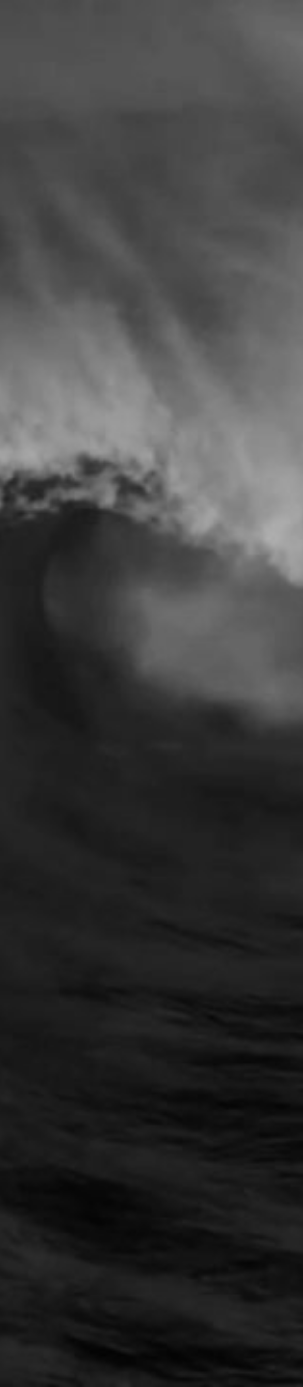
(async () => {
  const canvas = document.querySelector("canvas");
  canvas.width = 303;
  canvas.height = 1387;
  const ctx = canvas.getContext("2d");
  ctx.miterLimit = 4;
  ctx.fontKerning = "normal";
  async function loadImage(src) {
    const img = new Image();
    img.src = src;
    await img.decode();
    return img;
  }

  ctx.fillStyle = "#ffffff";
  ctx.fillRect(0, 0, 303, 1387);
  ctx.drawImage(await loadImage("img/1.png"), 0, 0, 303, 1387);
})();
